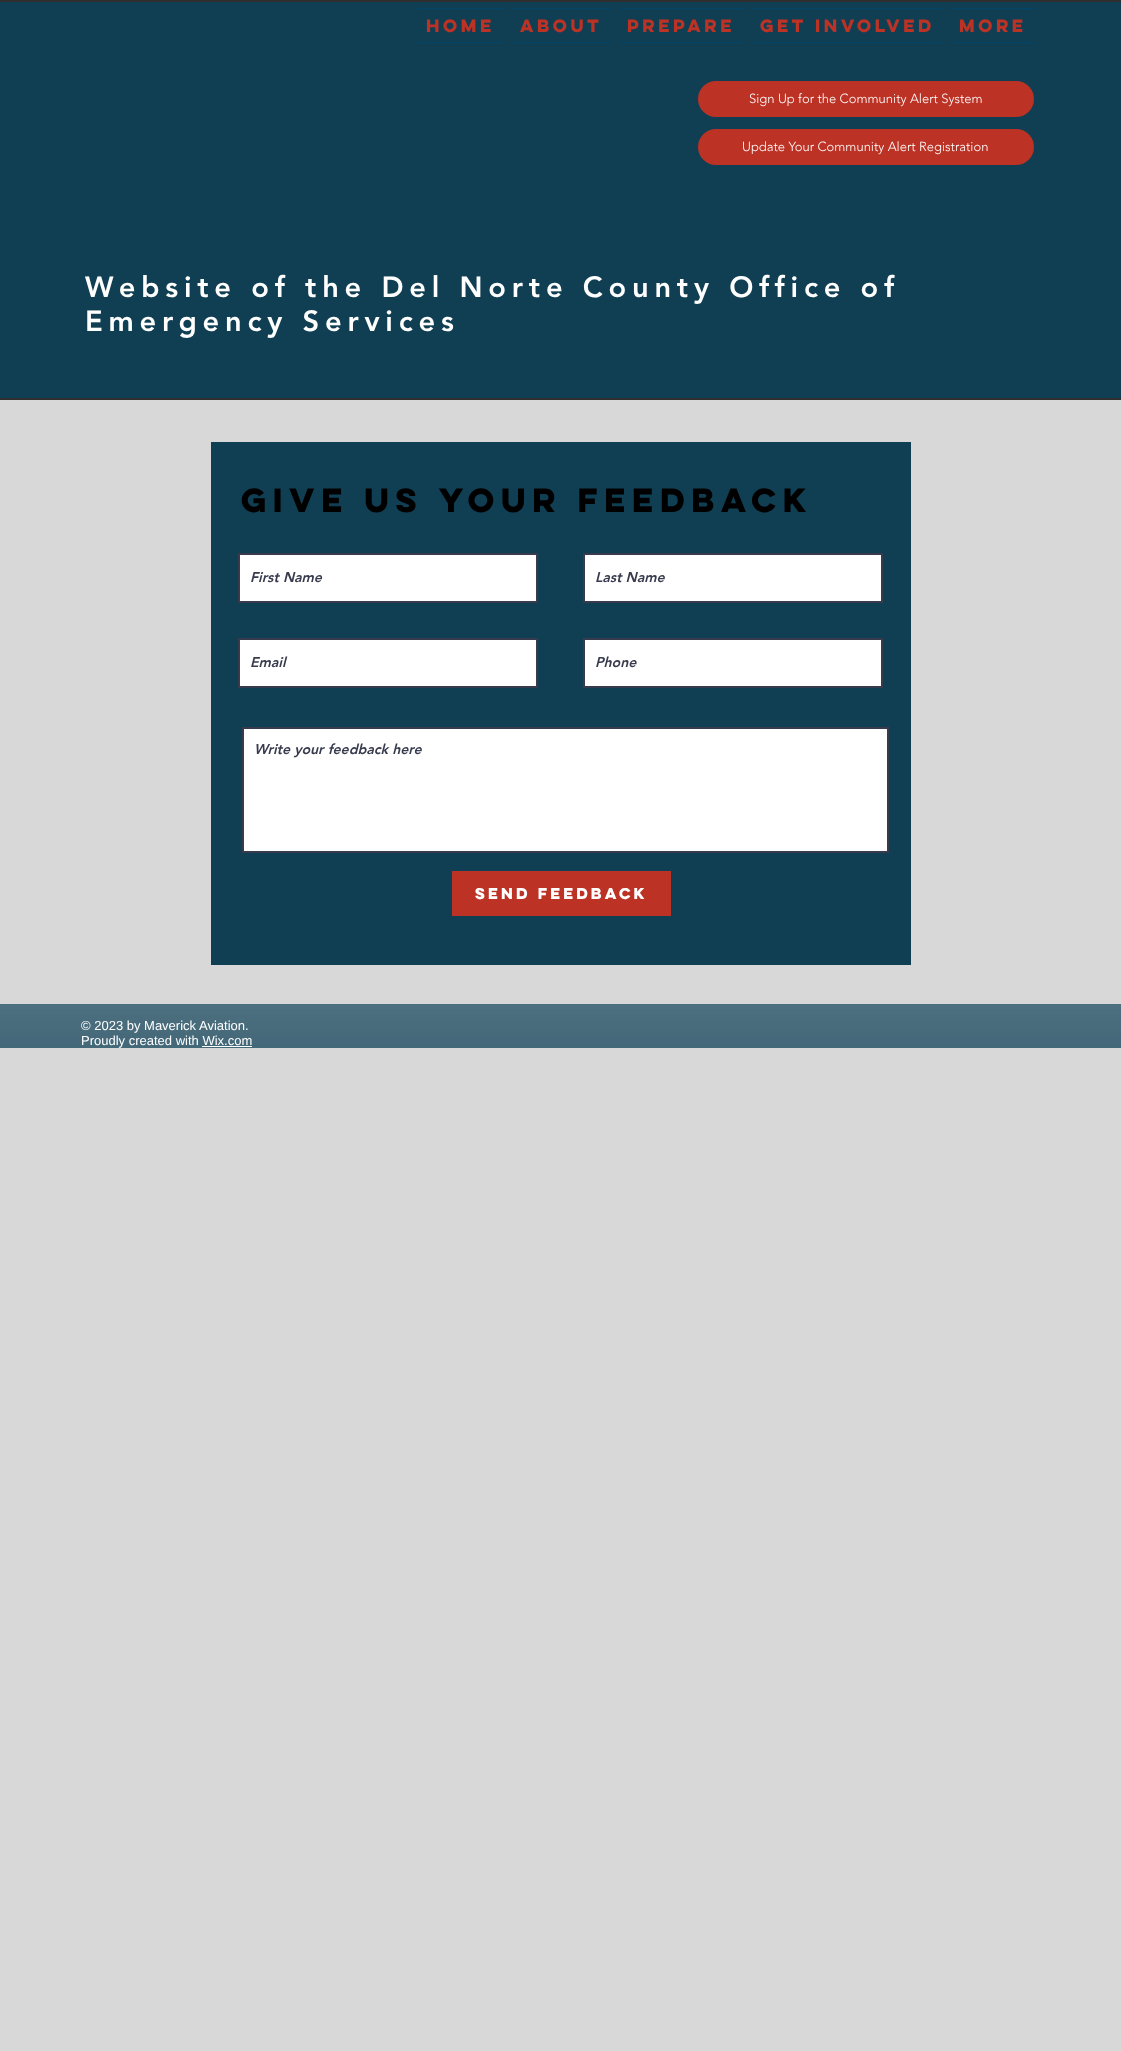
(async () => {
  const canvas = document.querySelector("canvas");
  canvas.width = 1121;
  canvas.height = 2051;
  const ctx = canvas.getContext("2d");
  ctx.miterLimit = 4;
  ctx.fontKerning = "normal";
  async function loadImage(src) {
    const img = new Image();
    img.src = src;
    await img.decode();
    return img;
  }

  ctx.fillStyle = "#d8d8d8";
  ctx.fillRect(0, 0, 1121, 2051);
  for (const [x, y, w, h, color] of [
    [0, 0, 1121, 2, "#2f2e2e"],
    [0, 398, 1121, 2, "#2f2e2e"],
    [0, 2, 1121, 396, "#103f54"],
    [418, 8, 85, 1, "#01456a"],
    [418, 42, 85, 1, "#01456a"],
    [513, 8, 97, 1, "#01456a"],
    [513, 42, 97, 1, "#01456a"],
    [620, 8, 123, 1, "#01456a"],
    [620, 42, 123, 1, "#01456a"],
    [753, 8, 189, 1, "#01456a"],
    [753, 42, 189, 1, "#01456a"],
    [952, 8, 83, 1, "#01456a"],
    [952, 42, 83, 1, "#01456a"],
  ]) {
    ctx.fillStyle = color;
    ctx.fillRect(x, y, w, h);
  }
  ctx.fillStyle = "#bc3225";
  ctx.beginPath();
  ctx.roundRect(698, 81, 336, 36, 18);
  ctx.fill();
  ctx.beginPath();
  ctx.roundRect(698, 129, 336, 36, 18);
  ctx.fill();
  ctx.fillStyle = "#103f54";
  ctx.fillRect(211, 442, 700, 523);
  ctx.fillStyle = "#ffffff";
  ctx.beginPath();
  ctx.rect(239, 554, 298, 48);
  ctx.fill();
  ctx.strokeStyle = "#373b4d";
  ctx.lineWidth = 2;
  ctx.stroke();
  ctx.beginPath();
  ctx.rect(584, 554, 298, 48);
  ctx.fill();
  ctx.stroke();
  ctx.beginPath();
  ctx.rect(239, 639, 298, 48);
  ctx.fill();
  ctx.stroke();
  ctx.beginPath();
  ctx.rect(584, 639, 298, 48);
  ctx.fill();
  ctx.stroke();
  ctx.beginPath();
  ctx.rect(243, 728, 645, 124);
  ctx.fill();
  ctx.stroke();
  ctx.fillStyle = "#bc3225";
  ctx.fillRect(452, 871, 219, 45);
  ctx.fillStyle = "#103f54";
  ctx.fillRect(0, 1004, 1121, 44);
  ctx.drawImage(await loadImage("img/1.png"), 0, 1004, 1121, 44);
  ctx.fillStyle = "#ffffff";
  ctx.fillRect(202, 1046, 50, 1);
  ctx.font = "bold 16px 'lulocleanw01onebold'";
  ctx.fillStyle = "#bc3225";
  for (const [text, x, y] of [
    ["Home", 426, 32],
    ["About", 520, 32],
    ["Prepare", 627, 32],
    ["Get Involved", 760, 32],
    ["More", 959, 32],
  ]) {
    ctx.fillText(text, x, y);
  }
  ctx.font = "300 13px 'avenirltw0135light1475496'";
  ctx.fillStyle = "#ffffff";
  ctx.fillText("Sign Up for the Community Alert System", 749, 103);
  ctx.fillText("Update Your Community Alert Registration", 742, 151);
  ctx.letterSpacing = "5.8px";
  ctx.font = "900 29px 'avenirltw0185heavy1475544'";
  ctx.fillText("Website of the Del Norte County Office of", 85, 297);
  ctx.fillText("Emergency Services", 85, 331);
  ctx.letterSpacing = "0px";
  ctx.font = "bold 30px 'lulocleanw01onebold'";
  ctx.fillStyle = "#000000";
  ctx.fillText("Give Us Your Feedback", 241, 512);
  ctx.font = "italic 900 14px 'avenirltw0185heavy1475544'";
  ctx.fillStyle = "#373b4d";
  for (const [text, x, y] of [
    ["First Name", 250, 582],
    ["Last Name", 595, 582],
    ["Email", 250, 667],
    ["Phone", 595, 667],
    ["Write your feedback here", 254, 754],
  ]) {
    ctx.fillText(text, x, y);
  }
  ctx.font = "bold 14px 'lulocleanw01onebold'";
  ctx.fillStyle = "#ffffff";
  ctx.fillText("Send Feedback", 475, 899);
  ctx.font = "13px Liberation Sans";
  ctx.fillText("© 2023 by Maverick Aviation.", 81, 1030);
  ctx.fillText("Proudly created with Wix.com", 81, 1045);
})();
